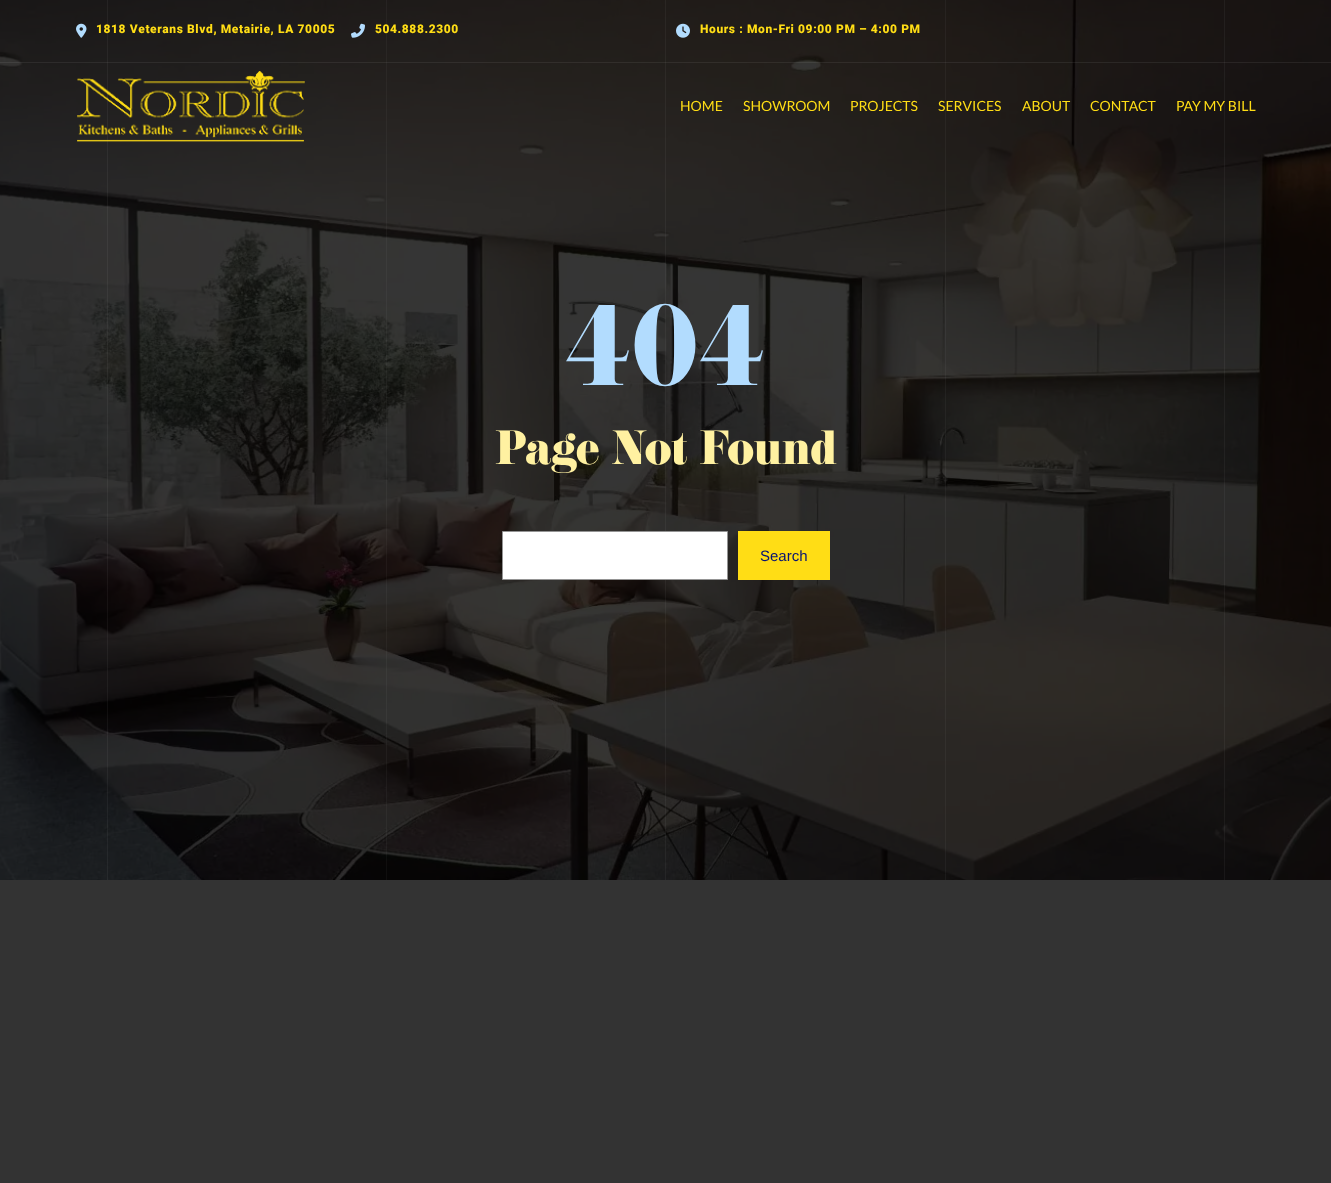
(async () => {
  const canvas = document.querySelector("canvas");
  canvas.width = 1331;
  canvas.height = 1183;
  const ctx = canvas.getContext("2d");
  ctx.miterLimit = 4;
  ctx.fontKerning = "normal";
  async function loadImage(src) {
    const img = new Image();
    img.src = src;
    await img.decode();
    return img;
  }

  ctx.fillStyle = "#333333";
  ctx.fillRect(0, 0, 1331, 1183);
  ctx.drawImage(await loadImage("img/5.png"), 0, 0, 1331, 880);
  ctx.drawImage(await loadImage("img/6.png"), 107, 0, 1118, 880);
  ctx.fillStyle = "rgba(225, 225, 225, 0.08)";
  ctx.fillRect(0, 62, 1331, 1);
  ctx.drawImage(await loadImage("img/1.png"), 76, 23, 11, 15);
  ctx.drawImage(await loadImage("img/2.png"), 351, 23, 14, 15);
  ctx.drawImage(await loadImage("img/3.png"), 676, 23, 14, 15);
  ctx.drawImage(await loadImage("img/4.png"), 77, 71, 228, 71);
  ctx.fillStyle = "#ffffff";
  ctx.beginPath();
  ctx.rect(502.5, 531.5, 225, 48);
  ctx.fill();
  ctx.strokeStyle = "#949494";
  ctx.stroke();
  ctx.fillStyle = "#ffdd15";
  ctx.fillRect(738, 531, 92, 49);
  ctx.letterSpacing = "0.6px";
  ctx.font = "800 12px Heebo";
  for (const [text, x, y] of [
    ["1818 Veterans Blvd, Metairie, LA 70005", 96, 33],
    ["504.888.2300", 375, 33],
    ["Hours : Mon-Fri 09:00 PM – 4:00 PM", 700, 33],
  ]) {
    ctx.fillText(text, x, y);
  }
  ctx.letterSpacing = "0px";
  ctx.font = "14px Lato";
  for (const [text, x, y] of [
    ["HOME", 680, 111],
    ["SHOWROOM", 743, 111],
    ["PROJECTS", 850, 111],
    ["SERVICES", 938, 111],
    ["ABOUT", 1022, 111],
    ["CONTACT", 1090, 111],
    ["PAY MY BILL", 1176, 111],
  ]) {
    ctx.fillText(text, x, y);
  }
  ctx.letterSpacing = "1px";
  ctx.font = "100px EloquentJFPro";
  ctx.fillStyle = "#b2dcfe";
  ctx.fillText("404", 565, 385);
  ctx.letterSpacing = "0px";
  ctx.font = "42px EloquentJFPro";
  ctx.fillStyle = "#fff1a1";
  ctx.fillText("Page Not Found", 495, 464);
  ctx.font = "15px Liberation Sans";
  ctx.fillStyle = "#061274";
  ctx.fillText("Search", 760, 561);
})();
